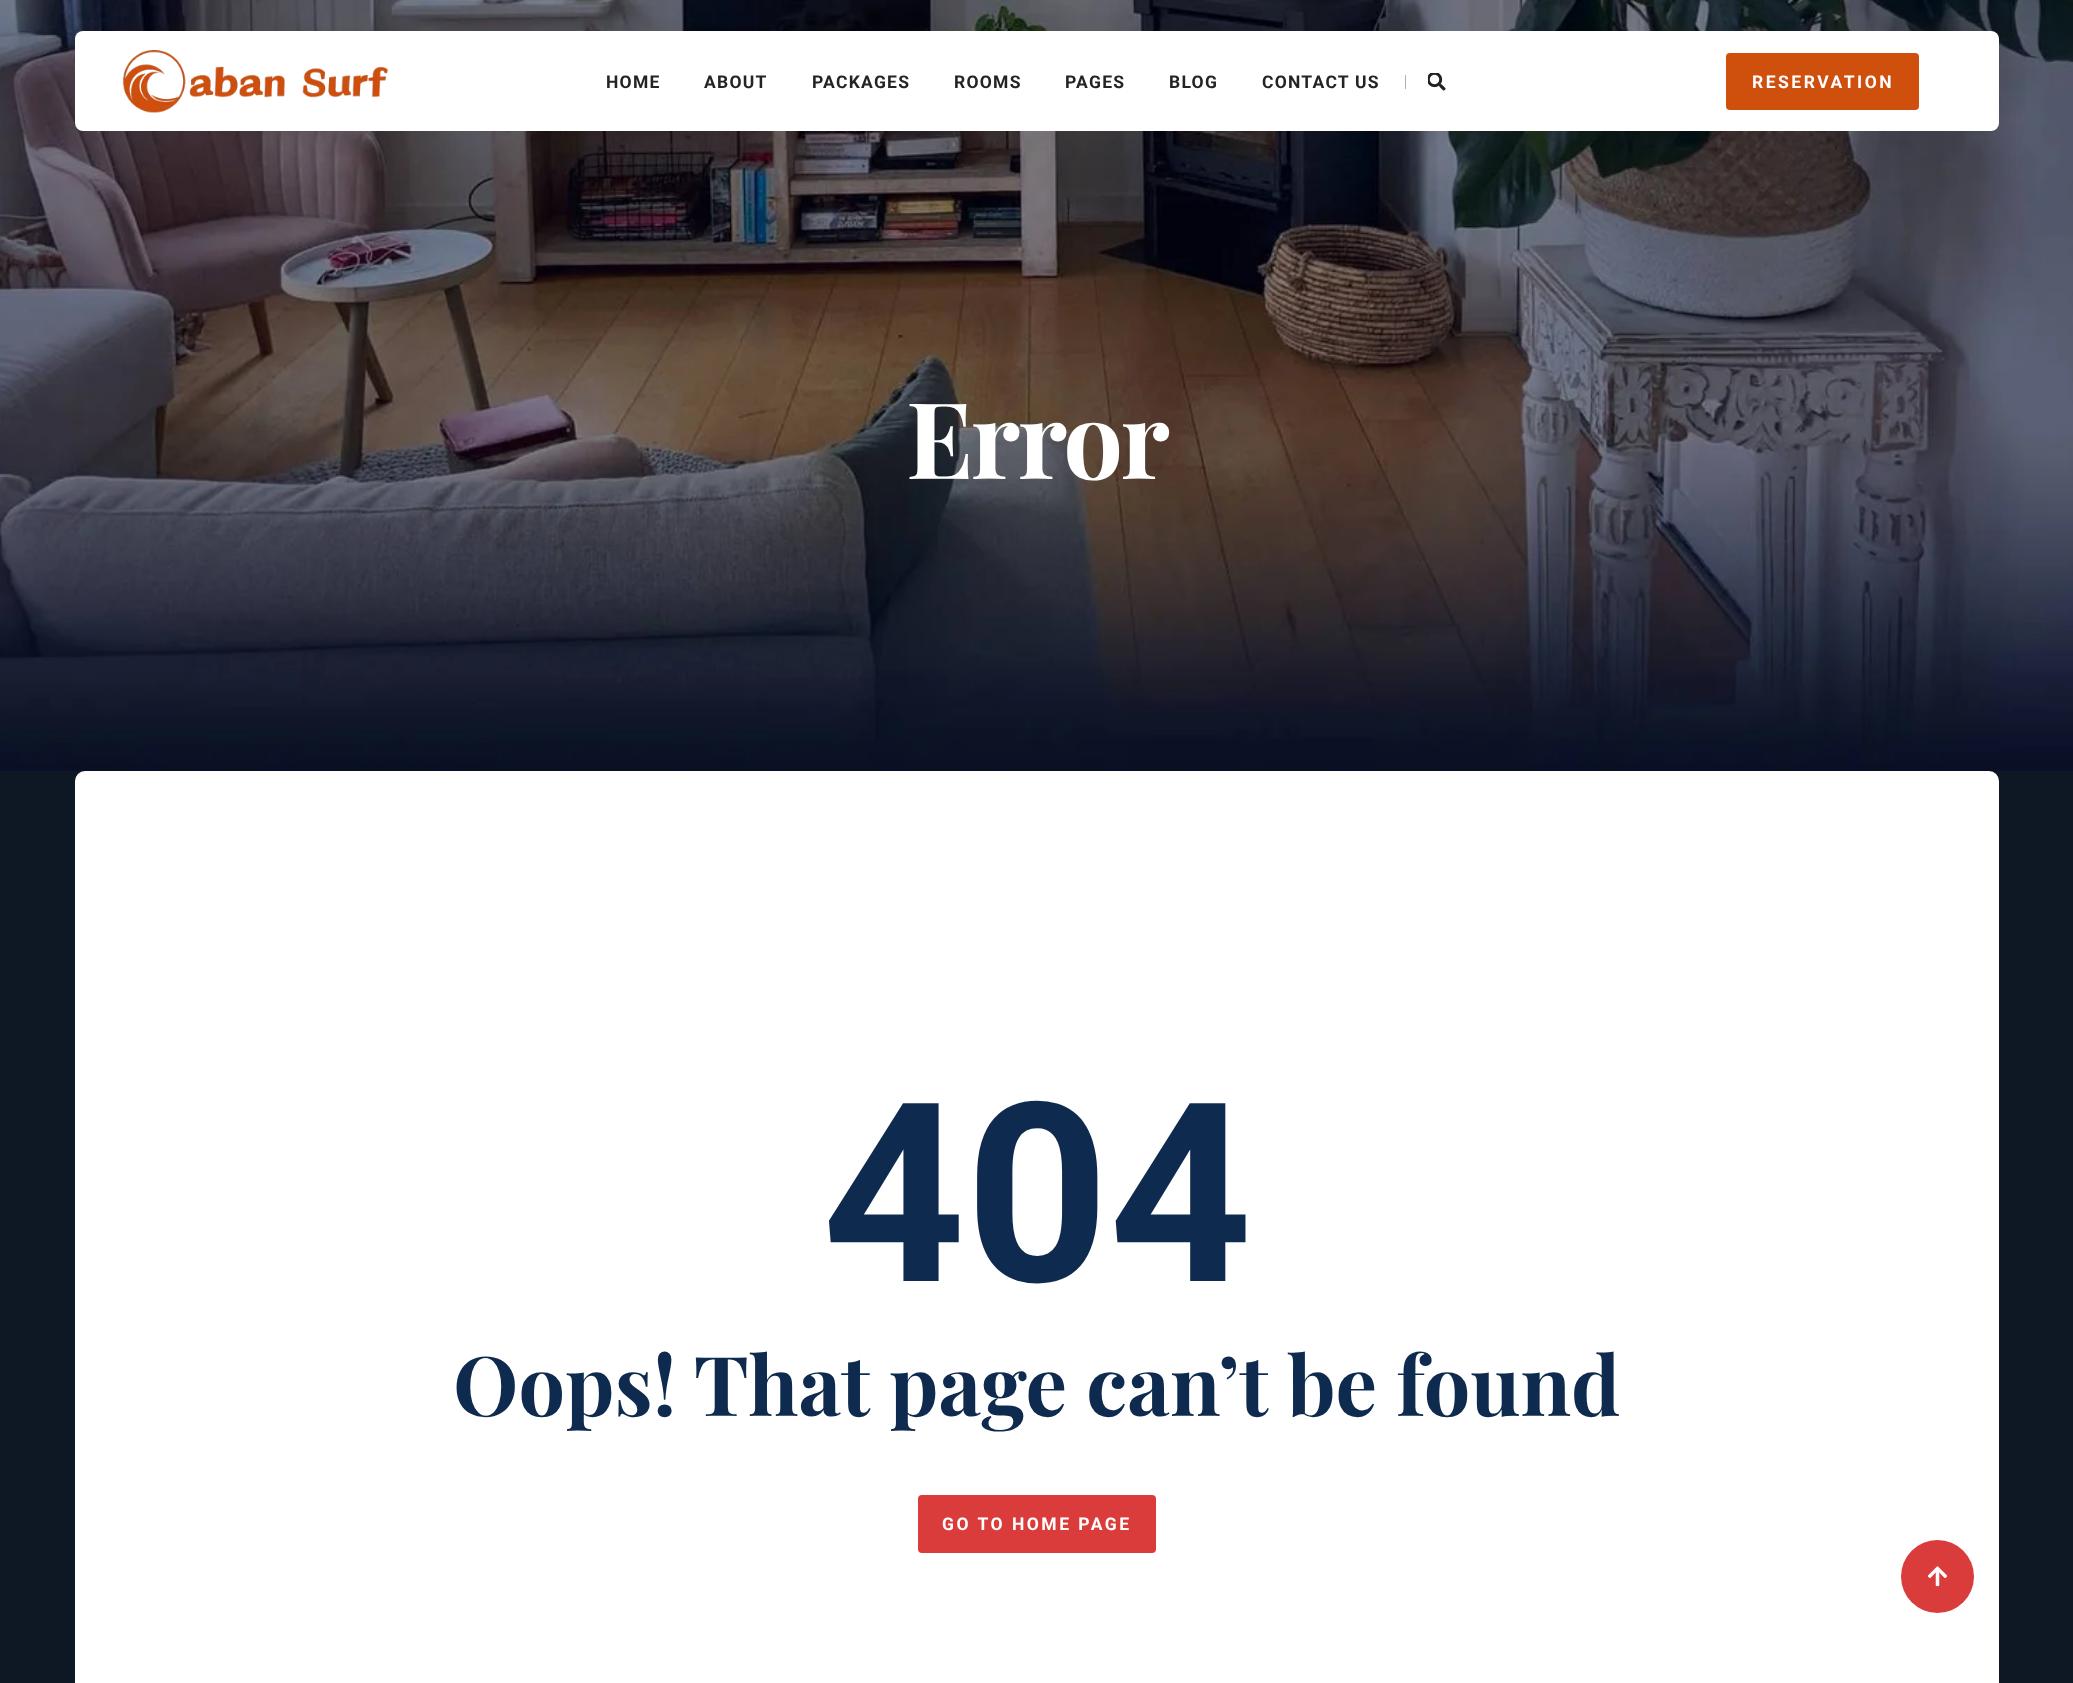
(async () => {
  const canvas = document.querySelector("canvas");
  canvas.width = 2073;
  canvas.height = 1683;
  const ctx = canvas.getContext("2d");
  ctx.miterLimit = 4;
  ctx.fontKerning = "normal";
  async function loadImage(src) {
    const img = new Image();
    img.src = src;
    await img.decode();
    return img;
  }

  ctx.fillStyle = "#ffffff";
  ctx.fillRect(0, 0, 2073, 1683);
  ctx.drawImage(await loadImage("img/3.png"), 0, 0, 2073, 771);
  ctx.beginPath();
  ctx.roundRect(75, 31, 1924, 100, 8);
  ctx.fill();
  ctx.drawImage(await loadImage("img/1.png"), 122, 50, 266, 63);
  ctx.fillStyle = "#b0b0b0";
  ctx.fillRect(1405, 75, 1, 14);
  ctx.drawImage(await loadImage("img/2.png"), 1428, 73, 18, 18);
  ctx.fillStyle = "#cf4f0d";
  ctx.beginPath();
  ctx.roundRect(1726, 53, 193, 57, 4);
  ctx.fill();
  ctx.fillStyle = "#0e1824";
  ctx.fillRect(0, 771, 2073, 912);
  ctx.fillStyle = "#ffffff";
  ctx.beginPath();
  ctx.roundRect(75, 771, 1924, 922, 10);
  ctx.fill();
  ctx.fillStyle = "#da3c3c";
  ctx.beginPath();
  ctx.roundRect(918, 1495, 238, 58, 4);
  ctx.fill();
  ctx.beginPath();
  ctx.arc(1937.5, 1576.5, 36.5, 0, Math.PI * 2);
  ctx.fill();
  ctx.drawImage(await loadImage("img/4.png"), 1927, 1566, 20, 21);
  ctx.letterSpacing = "1.25px";
  ctx.font = "bold 17.5px Roboto";
  ctx.fillStyle = "#242424";
  for (const [text, x, y] of [
    ["HOME", 606, 88],
    ["ABOUT", 704, 88],
    ["PACKAGES", 812, 88],
    ["ROOMS", 954, 88],
    ["PAGES", 1065, 88],
    ["BLOG", 1169, 88],
    ["CONTACT US", 1262, 88],
  ]) {
    ctx.fillText(text, x, y);
  }
  ctx.letterSpacing = "2.5px";
  ctx.fillStyle = "#ffffff";
  ctx.fillText("RESERVATION", 1752, 88);
  ctx.letterSpacing = "-2.5px";
  ctx.font = "bold 106px Playfair Display";
  ctx.fillText("Error", 906, 479);
  ctx.letterSpacing = "0px";
  ctx.font = "bold 250px Roboto";
  ctx.fillStyle = "#0e2a4e";
  ctx.fillText("404", 822, 1281);
  ctx.font = "bold 82.5px Playfair Display";
  ctx.fillText("Oops! That page can’t be found", 453, 1416);
  ctx.letterSpacing = "2.5px";
  ctx.font = "bold 17.5px Roboto";
  ctx.fillStyle = "#ffffff";
  ctx.fillText("GO TO HOME PAGE", 942, 1530);
})();
